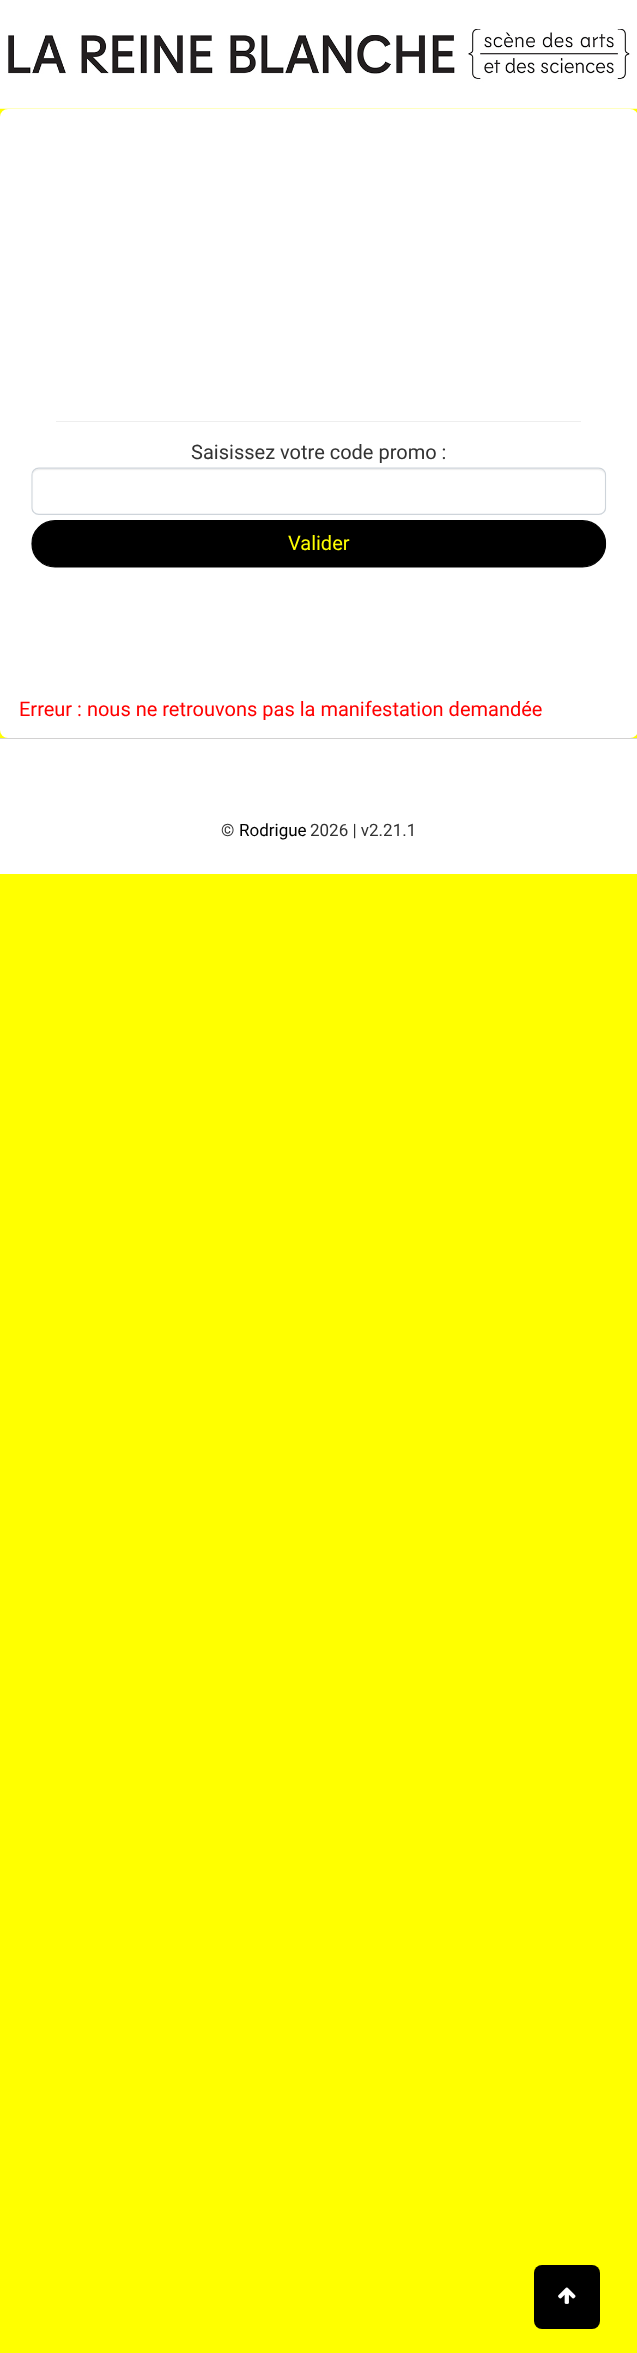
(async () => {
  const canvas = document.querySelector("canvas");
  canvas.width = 637;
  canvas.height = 2353;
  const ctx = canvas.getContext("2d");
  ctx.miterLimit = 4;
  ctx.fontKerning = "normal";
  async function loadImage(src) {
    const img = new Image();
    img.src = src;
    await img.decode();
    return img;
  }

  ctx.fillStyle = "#ffff00";
  ctx.fillRect(0, 0, 637, 2353);
  ctx.drawImage(await loadImage("img/1.png"), 0, 0, 637, 109);
  ctx.fillStyle = "#ffffff";
  ctx.beginPath();
  ctx.roundRect(0, 109, 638, 629, 8);
  ctx.fill();
  ctx.fillStyle = "#eeeeee";
  ctx.fillRect(56, 421, 525, 1);
  ctx.drawImage(await loadImage("img/2.png"), 31, 444, 576, 124);
  ctx.fillStyle = "#ffffff";
  ctx.fillRect(0, 739, 637, 135);
  ctx.fillStyle = "#d2d1d1";
  ctx.fillRect(0, 738, 637, 1);
  ctx.fillStyle = "#000000";
  ctx.beginPath();
  ctx.roundRect(534, 2265, 66, 64, 8);
  ctx.fill();
  ctx.drawImage(await loadImage("img/3.png"), 558, 2287, 18, 17);
  ctx.font = "20px Roboto";
  ctx.fillStyle = "#ff0000";
  ctx.fillText("Erreur : nous ne retrouvons pas la manifestation demandée", 19, 716);
  ctx.font = "17px Roboto";
  ctx.fillStyle = "#333333";
  ctx.fillText("©", 221, 836);
  ctx.fillStyle = "#000000";
  ctx.fillText("Rodrigue", 239, 836);
  ctx.fillStyle = "#333333";
  ctx.fillText("2026 | v2.21.1", 310, 836);
})();
